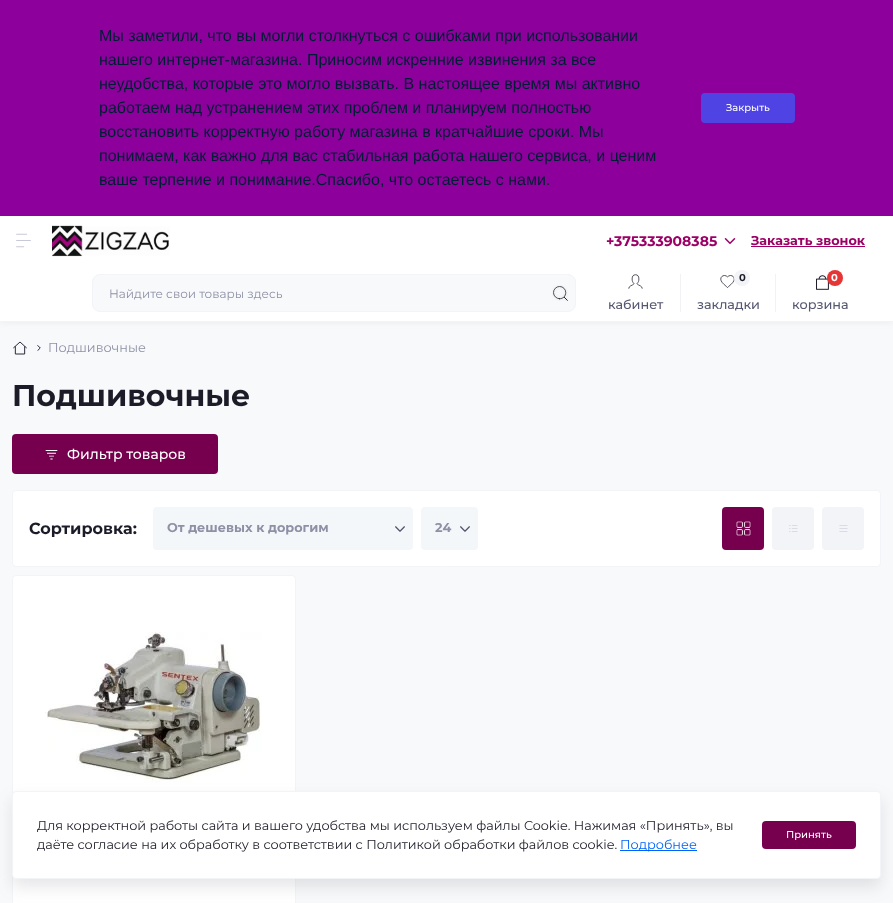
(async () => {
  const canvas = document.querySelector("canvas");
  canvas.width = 893;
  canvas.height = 903;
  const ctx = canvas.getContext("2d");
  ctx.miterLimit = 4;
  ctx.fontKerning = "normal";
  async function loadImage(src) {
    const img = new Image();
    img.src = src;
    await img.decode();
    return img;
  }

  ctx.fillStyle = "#f8f9fa";
  ctx.fillRect(0, 0, 893, 903);
  ctx.fillStyle = "#8d009c";
  ctx.fillRect(0, 0, 893, 216);
  ctx.fillStyle = "#4f43e3";
  ctx.beginPath();
  ctx.roundRect(701, 93, 94, 30, 4);
  ctx.fill();
  ctx.fillStyle = "rgba(96, 97, 112, 0.16)";
  ctx.filter = "blur(4px)";
  ctx.beginPath();
  ctx.rect(0, 264, 893, 56);
  ctx.fill();
  ctx.filter = "none";
  ctx.fillStyle = "#ffffff";
  ctx.fillRect(0, 216, 893, 105);
  ctx.drawImage(await loadImage("img/1.png"), 16, 233, 15, 15);
  ctx.drawImage(await loadImage("img/2.png"), 52, 225, 118, 32);
  ctx.drawImage(await loadImage("img/3.png"), 724, 238, 12, 6);
  ctx.fillStyle = "#9c0066";
  ctx.fillRect(751, 246, 114, 1);
  ctx.fillStyle = "#f2f4f8";
  ctx.fillRect(0, 321, 893, 1);
  ctx.fillStyle = "#f8f9fa";
  ctx.beginPath();
  ctx.roundRect(92.5, 274.5, 483, 37, 7.5);
  ctx.fill();
  ctx.strokeStyle = "#f2f4f8";
  ctx.stroke();
  ctx.drawImage(await loadImage("img/4.png"), 552, 285, 16, 16);
  ctx.drawImage(await loadImage("img/5.png"), 628, 274, 15, 15);
  ctx.fillStyle = "#f2f2f5";
  ctx.fillRect(680, 274, 1, 38);
  ctx.drawImage(await loadImage("img/6.png"), 720, 275, 15, 13);
  ctx.fillStyle = "#f2f4f8";
  ctx.beginPath();
  ctx.arc(742, 278, 8, 0, Math.PI * 2);
  ctx.fill();
  ctx.fillStyle = "#f2f2f5";
  ctx.fillRect(775, 274, 1, 38);
  ctx.drawImage(await loadImage("img/7.png"), 816, 275, 13, 15);
  ctx.fillStyle = "#e53535";
  ctx.beginPath();
  ctx.arc(835, 278, 8, 0, Math.PI * 2);
  ctx.fill();
  ctx.drawImage(await loadImage("img/8.png"), 13, 341, 14, 14);
  ctx.drawImage(await loadImage("img/9.png"), 37, 345, 4, 6);
  ctx.fillStyle = "#77004e";
  ctx.beginPath();
  ctx.roundRect(12, 434, 206, 40, 4);
  ctx.fill();
  ctx.drawImage(await loadImage("img/10.png"), 45, 450, 13, 10);
  ctx.fillStyle = "#ffffff";
  ctx.beginPath();
  ctx.roundRect(12.5, 490.5, 868, 76, 3.5);
  ctx.fill();
  ctx.stroke();
  ctx.fillStyle = "#f4f7fa";
  ctx.beginPath();
  ctx.roundRect(153, 507, 260, 43, 4);
  ctx.fill();
  ctx.drawImage(await loadImage("img/11.png"), 395, 526, 10, 6);
  ctx.beginPath();
  ctx.roundRect(421, 507, 57, 43, 4);
  ctx.fill();
  ctx.drawImage(await loadImage("img/11.png"), 460, 526, 10, 6);
  ctx.fillStyle = "#77004e";
  ctx.beginPath();
  ctx.roundRect(722, 507, 42, 43, 4);
  ctx.fill();
  ctx.drawImage(await loadImage("img/12.png"), 736, 521, 15, 15);
  ctx.fillStyle = "#f2f4f8";
  ctx.beginPath();
  ctx.roundRect(772, 507, 42, 43, 4);
  ctx.fill();
  ctx.drawImage(await loadImage("img/13.png"), 789, 525, 9, 7);
  ctx.beginPath();
  ctx.roundRect(822, 507, 42, 43, 4);
  ctx.fill();
  ctx.drawImage(await loadImage("img/14.png"), 839, 525, 9, 7);
  ctx.fillStyle = "#ffffff";
  ctx.beginPath();
  ctx.roundRect(12.5, 575.5, 283, 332, 3.5);
  ctx.fill();
  ctx.stroke();
  ctx.drawImage(await loadImage("img/15.png"), 45, 632, 217, 151);
  ctx.fillStyle = "rgba(96, 97, 112, 0.16)";
  ctx.filter = "blur(8px)";
  ctx.beginPath();
  ctx.roundRect(12, 799, 869, 88, 4);
  ctx.fill();
  ctx.filter = "none";
  ctx.fillStyle = "#ffffff";
  ctx.beginPath();
  ctx.roundRect(12.5, 791.5, 868, 87, 3.5);
  ctx.fill();
  ctx.stroke();
  ctx.fillStyle = "#0063f7";
  ctx.fillRect(620, 850, 77, 1);
  ctx.fillStyle = "#77004e";
  ctx.beginPath();
  ctx.roundRect(762, 821, 94, 28, 4);
  ctx.fill();
  ctx.font = "16px Liberation Sans";
  ctx.fillStyle = "#001d35";
  for (const [text, x, y] of [
    ["Мы заметили, что вы могли столкнуться с ошибками при использовании", 99, 41],
    ["нашего интернет-магазина. Приносим искренние извинения за все", 99, 65],
    ["неудобства, которые это могло вызвать. В настоящее время мы активно", 99, 89],
    ["работаем над устранением этих проблем и планируем полностью", 99, 113],
    ["восстановить корректную работу магазина в кратчайшие сроки. Мы", 99, 137],
    ["понимаем, как важно для вас стабильная работа нашего сервиса, и ценим", 99, 161],
    ["ваше терпение и понимание.Спасибо, что остаетесь с нами.", 99, 185],
  ]) {
    ctx.fillText(text, x, y);
  }
  ctx.font = "500 10px Montserrat";
  ctx.fillStyle = "#ffffff";
  ctx.fillText("Закрыть", 726, 111);
  ctx.font = "bold 14px Montserrat";
  ctx.fillStyle = "#9c0066";
  ctx.fillText("+375333908385", 606, 246);
  ctx.font = "bold 12.8px Montserrat";
  ctx.fillText("Заказать звонок", 751, 245);
  ctx.font = "12px Montserrat";
  ctx.fillStyle = "#8f90a6";
  ctx.fillText("Найдите свои товары здесь", 109, 298);
  ctx.font = "500 12.8px Montserrat";
  ctx.fillStyle = "#555770";
  ctx.fillText("кабинет", 608, 309);
  ctx.font = "bold 10px Montserrat";
  ctx.fillStyle = "#1c1c28";
  ctx.fillText("0", 739, 281);
  ctx.font = "500 12.8px Montserrat";
  ctx.fillStyle = "#555770";
  ctx.fillText("закладки", 697, 309);
  ctx.font = "bold 10px Montserrat";
  ctx.fillStyle = "#ffffff";
  ctx.fillText("0", 831, 281);
  ctx.font = "500 12.8px Montserrat";
  ctx.fillStyle = "#555770";
  ctx.fillText("корзина", 792, 309);
  ctx.font = "12.8px Montserrat";
  ctx.fillStyle = "#8f90a6";
  ctx.fillText("Подшивочные", 48, 352);
  ctx.font = "bold 30px Montserrat";
  ctx.fillStyle = "#1c1c28";
  ctx.fillText("Подшивочные", 12, 406);
  ctx.font = "500 14px Montserrat";
  ctx.fillStyle = "#ffffff";
  ctx.fillText("Фильтр товаров", 67, 459);
  ctx.font = "bold 16px Montserrat";
  ctx.fillStyle = "#1c1c28";
  ctx.fillText("Сортировка:", 29, 534);
  ctx.font = "bold 12.8px Montserrat";
  ctx.fillStyle = "#8f90a6";
  ctx.fillText("От дешевых к дорогим", 167, 532);
  ctx.fillText("24", 435, 532);
  ctx.font = "12.8px Montserrat";
  ctx.fillStyle = "#1c1c28";
  ctx.fillText("Для корректной работы сайта и вашего удобства мы используем файлы Cookie. Нажимая «Принять», вы", 37, 830);
  ctx.fillText("даёте согласие на их обработку в соответствии с Политикой обработки файлов cookie.", 37, 849);
  ctx.fillStyle = "#0063f7";
  ctx.fillText("Подробнее", 620, 849);
  ctx.font = "500 10px Montserrat";
  ctx.fillStyle = "#ffffff";
  ctx.fillText("Принять", 786, 838);
})();
